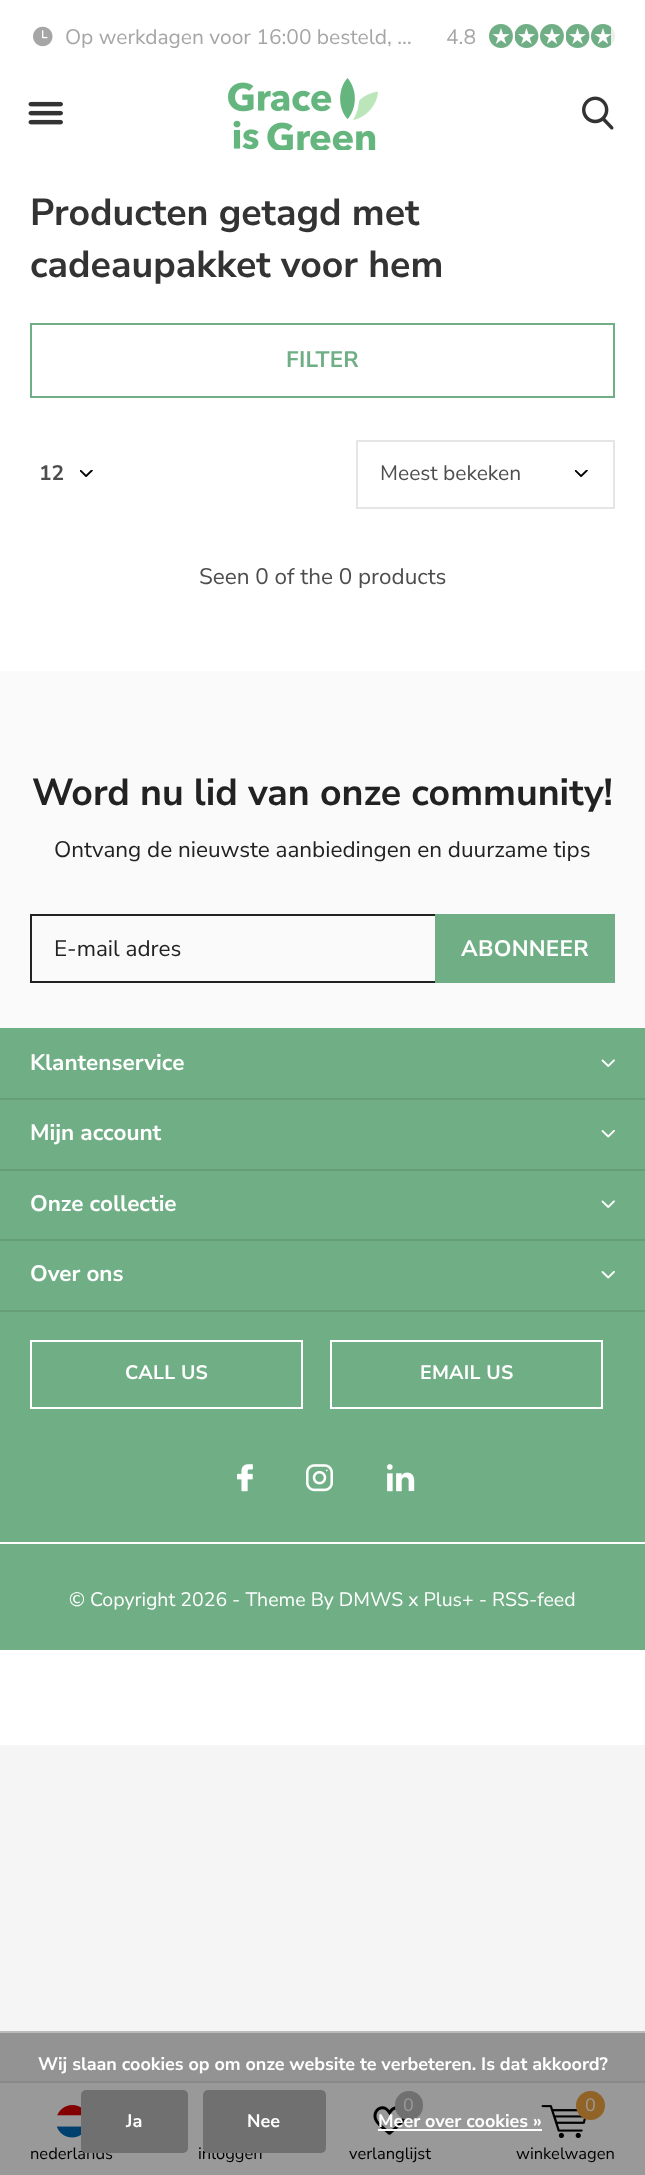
(async () => {
  const canvas = document.querySelector("canvas");
  canvas.width = 645;
  canvas.height = 2175;
  const ctx = canvas.getContext("2d");
  ctx.miterLimit = 4;
  ctx.fontKerning = "normal";
  async function loadImage(src) {
    const img = new Image();
    img.src = src;
    await img.decode();
    return img;
  }

  ctx.fillStyle = "#f5f5f5";
  ctx.fillRect(0, 0, 645, 2175);
  ctx.fillStyle = "#939393";
  ctx.fillRect(0, 2033, 645, 48);
  ctx.fillStyle = "#ffffff";
  ctx.fillRect(0, 0, 645, 1745);
  ctx.drawImage(await loadImage("img/1.png"), 33, 26, 20, 21);
  ctx.drawImage(await loadImage("img/2.png"), 489, 24, 24, 24);
  ctx.drawImage(await loadImage("img/3.png"), 489, 24, 24, 24);
  ctx.drawImage(await loadImage("img/4.png"), 515, 24, 24, 24);
  ctx.drawImage(await loadImage("img/5.png"), 515, 24, 24, 24);
  ctx.drawImage(await loadImage("img/2.png"), 540, 24, 24, 24);
  ctx.drawImage(await loadImage("img/3.png"), 540, 24, 24, 24);
  ctx.drawImage(await loadImage("img/4.png"), 566, 24, 24, 24);
  ctx.drawImage(await loadImage("img/5.png"), 566, 24, 24, 24);
  ctx.drawImage(await loadImage("img/2.png"), 591, 24, 24, 24);
  ctx.drawImage(await loadImage("img/6.png"), 591, 24, 20, 24);
  ctx.drawImage(await loadImage("img/7.png"), 28, 101, 35, 24);
  ctx.drawImage(await loadImage("img/8.png"), 228, 78, 150, 72);
  ctx.drawImage(await loadImage("img/9.png"), 582, 96, 32, 34);
  ctx.strokeStyle = "#70af85";
  ctx.lineWidth = 2;
  ctx.strokeRect(31, 324, 583, 73);
  ctx.drawImage(await loadImage("img/10.png"), 80, 470, 13, 7);
  ctx.drawImage(await loadImage("img/10.png"), 575, 470, 13, 7);
  ctx.strokeStyle = "#e5e5e5";
  ctx.strokeRect(357, 441, 257, 67);
  ctx.fillStyle = "#fafafa";
  ctx.fillRect(0, 671, 645, 357);
  ctx.strokeStyle = "#222222";
  ctx.strokeRect(31, 915, 583, 67);
  ctx.fillStyle = "#70af85";
  ctx.fillRect(435, 914, 180, 69);
  ctx.fillRect(0, 1028, 645, 622);
  ctx.drawImage(await loadImage("img/11.png"), 601, 1059, 14, 8);
  ctx.fillStyle = "#659e78";
  ctx.fillRect(0, 1098, 645, 2);
  ctx.drawImage(await loadImage("img/12.png"), 601, 1130, 14, 8);
  ctx.fillRect(0, 1169, 645, 2);
  ctx.drawImage(await loadImage("img/11.png"), 601, 1200, 14, 8);
  ctx.fillRect(0, 1239, 645, 2);
  ctx.drawImage(await loadImage("img/12.png"), 601, 1271, 14, 8);
  ctx.fillRect(0, 1310, 645, 2);
  ctx.strokeStyle = "#ffffff";
  ctx.strokeRect(31, 1341, 271, 67);
  ctx.strokeRect(331, 1341, 271, 67);
  ctx.drawImage(await loadImage("img/13.png"), 237, 1464, 16, 28);
  ctx.drawImage(await loadImage("img/14.png"), 306, 1464, 27, 28);
  ctx.drawImage(await loadImage("img/15.png"), 387, 1464, 28, 28);
  for (const [x, y, w, h, color] of [
    [0, 1542, 645, 2, "#ffffff"],
    [0, 2083, 645, 92, "#999999"],
    [0, 2081, 645, 2, "#898989"],
  ]) {
    ctx.fillStyle = color;
    ctx.fillRect(x, y, w, h);
  }
  ctx.drawImage(await loadImage("img/16.png"), 56, 2105, 25, 33);
  ctx.drawImage(await loadImage("img/17.png"), 373, 2106, 32, 29);
  ctx.fillStyle = "#707070";
  ctx.beginPath();
  ctx.roundRect(395, 2091, 28, 29, 14);
  ctx.fill();
  ctx.drawImage(await loadImage("img/18.png"), 541, 2105, 45, 33);
  ctx.fillStyle = "#926327";
  ctx.beginPath();
  ctx.arc(590.5, 2105.5, 14.5, 0, Math.PI * 2);
  ctx.fill();
  ctx.fillStyle = "#bbbbbb";
  ctx.fillRect(0, 2031, 645, 2);
  ctx.fillStyle = "#ffffff";
  ctx.fillRect(378, 2129, 164, 2);
  ctx.font = "21px Nunito Sans";
  ctx.fillStyle = "#a6a6a6";
  ctx.fillText("Op werkdagen voor 16:00 besteld, …", 65, 44);
  ctx.fillText("4.8", 446, 44);
  ctx.font = "bold 37.5px Nunito Sans";
  ctx.fillStyle = "#333333";
  ctx.fillText("Producten getagd met", 30, 225);
  ctx.fillText("cadeaupakket voor hem", 30, 277);
  ctx.letterSpacing = "0.25px";
  ctx.font = "bold 22.5px Nunito Sans";
  ctx.fillStyle = "#70af85";
  ctx.fillText("FILTER", 286, 367);
  ctx.letterSpacing = "0px";
  ctx.font = "bold 21px Nunito Sans";
  ctx.fillStyle = "#4d4d4d";
  ctx.fillText("12", 39, 480);
  ctx.font = "21px Nunito Sans";
  ctx.fillText("Meest bekeken", 380, 480);
  ctx.font = "22.5px Nunito Sans";
  ctx.fillText("Seen 0 of the 0 products", 199, 584);
  ctx.font = "bold 37.5px Nunito Sans";
  ctx.fillStyle = "#222222";
  ctx.fillText("Word nu lid van onze community!", 32, 805);
  ctx.font = "22.5px Nunito Sans";
  ctx.fillText("Ontvang de nieuwste aanbiedingen en duurzame tips", 54, 857);
  ctx.fillText("E-mail adres", 54, 956);
  ctx.letterSpacing = "0.25px";
  ctx.font = "bold 22.5px Nunito Sans";
  ctx.fillStyle = "#ffffff";
  ctx.fillText("ABONNEER", 461, 956);
  ctx.letterSpacing = "0px";
  for (const [text, x, y] of [
    ["Klantenservice", 30, 1070],
    ["Mijn account", 30, 1140],
    ["Onze collectie", 30, 1211],
    ["Over ons", 30, 1281],
  ]) {
    ctx.fillText(text, x, y);
  }
  ctx.letterSpacing = "0.25px";
  ctx.font = "bold 19.5px Nunito Sans";
  ctx.fillText("CALL US", 125, 1379);
  ctx.fillText("EMAIL US", 420, 1379);
  ctx.letterSpacing = "0px";
  ctx.font = "19.5px Nunito Sans";
  ctx.fillText("© Copyright 2026 - Theme By DMWS x Plus+ - RSS-feed", 69, 1606);
  ctx.font = "16.5px Nunito Sans";
  ctx.fillStyle = "#000000";
  ctx.fillText("nederlands", 30, 2159);
  ctx.fillText("inloggen", 198, 2159);
  ctx.font = "18px Nunito Sans";
  ctx.fillStyle = "#999999";
  ctx.fillText("0", 403, 2111);
  ctx.font = "16.5px Nunito Sans";
  ctx.fillStyle = "#000000";
  ctx.fillText("verlanglijst", 349, 2159);
  ctx.font = "18px Nunito Sans";
  ctx.fillStyle = "#999999";
  ctx.fillText("0", 585, 2111);
  ctx.font = "16.5px Nunito Sans";
  ctx.fillStyle = "#000000";
  ctx.fillText("winkelwagen", 516, 2159);
  ctx.font = "bold 18px Nunito Sans";
  ctx.fillStyle = "#ffffff";
  ctx.fillText("Wij slaan cookies op om onze website te verbeteren. Is dat akkoord?", 38, 2070);
  ctx.fillStyle = "#707070";
  ctx.beginPath();
  ctx.roundRect(81, 2090, 107, 63, 5);
  ctx.fill();
  ctx.fillStyle = "#ffffff";
  ctx.fillText("Ja", 126, 2127);
  ctx.fillStyle = "#707070";
  ctx.beginPath();
  ctx.roundRect(203, 2090, 123, 63, 5);
  ctx.fill();
  ctx.fillStyle = "#ffffff";
  ctx.fillText("Nee", 247, 2127);
  ctx.fillText("Meer over cookies »", 378, 2127);
})();
